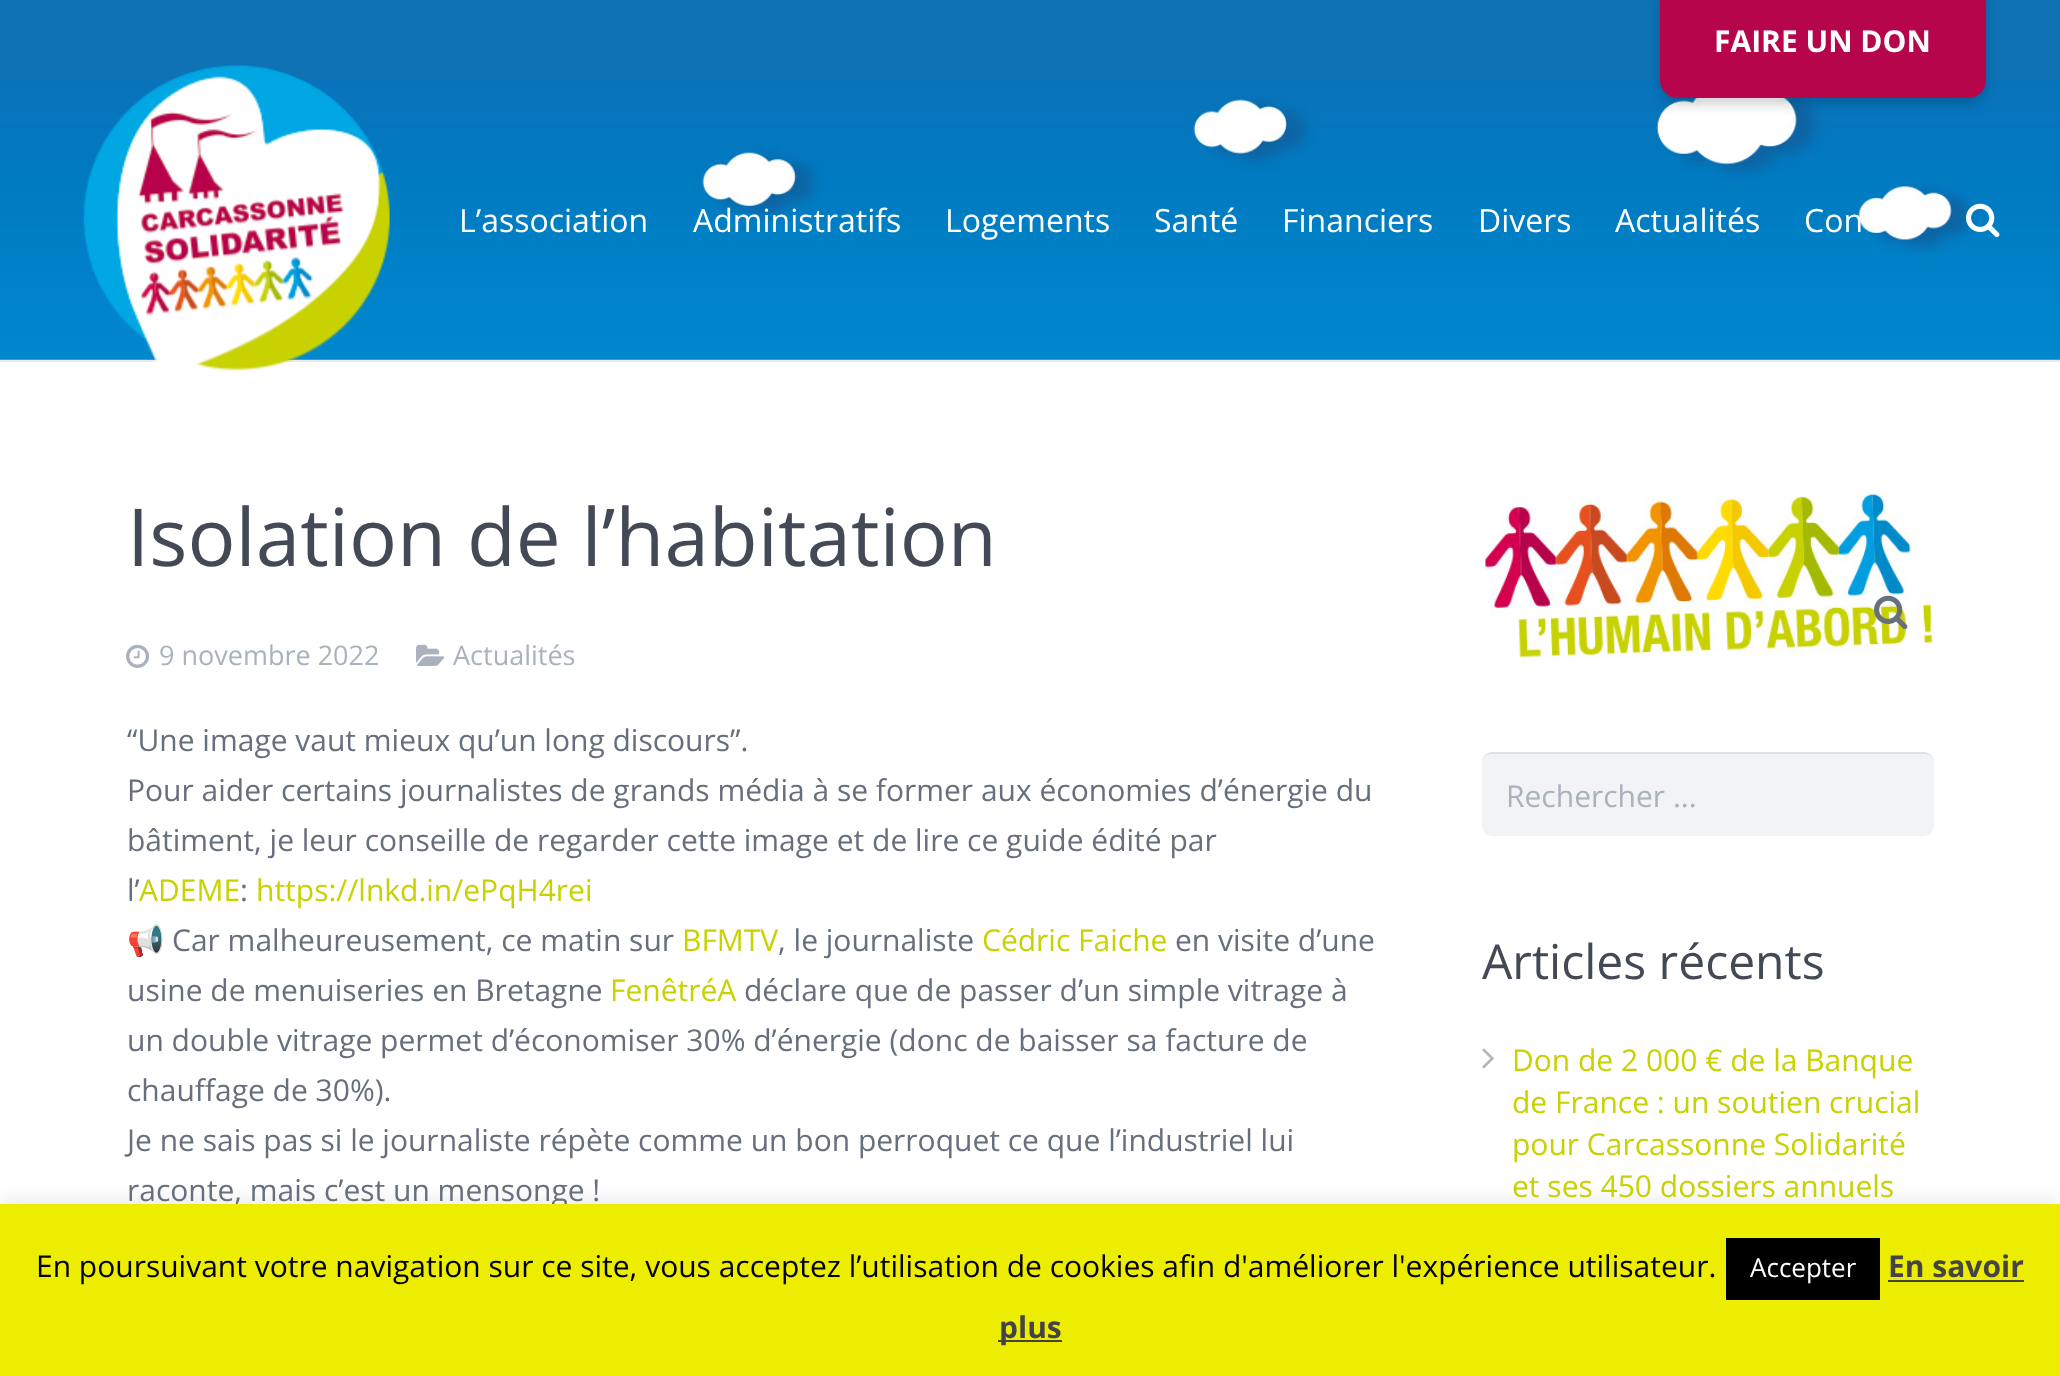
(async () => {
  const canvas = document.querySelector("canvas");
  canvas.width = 2060;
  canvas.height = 1376;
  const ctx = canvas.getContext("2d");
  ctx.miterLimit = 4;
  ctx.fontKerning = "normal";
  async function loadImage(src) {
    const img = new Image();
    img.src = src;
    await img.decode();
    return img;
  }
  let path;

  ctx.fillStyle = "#ffffff";
  ctx.fillRect(0, 0, 2060, 1376);
  ctx.fillStyle = "#0e72b5";
  ctx.fillRect(0, 0, 2060, 80);
  ctx.drawImage(await loadImage("img/1.png"), 0, 80, 2060, 280);
  ctx.fillStyle = "rgba(0, 0, 0, 0.18)";
  ctx.filter = "blur(6px)";
  ctx.beginPath();
  ctx.roundRect(1660, -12, 326, 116, 18);
  ctx.fill();
  ctx.filter = "none";
  ctx.fillStyle = "#b7054b";
  ctx.beginPath();
  ctx.roundRect(1660, -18, 326, 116, 18);
  ctx.fill();
  ctx.fillStyle = "#ebebeb";
  ctx.fillRect(0, 360, 2060, 2);
  ctx.drawImage(await loadImage("img/2.png"), 83, 65, 307, 307);
  ctx.drawImage(await loadImage("img/3.png"), 1966, 203, 34, 35);
  ctx.drawImage(await loadImage("img/4.png"), 126, 644, 24, 24);
  ctx.drawImage(await loadImage("img/5.png"), 416, 644, 29, 22);
  ctx.drawImage(await loadImage("img/6.png"), 1482, 489, 452, 172);
  ctx.drawImage(await loadImage("img/7.png"), 1874, 595, 34, 35);
  ctx.fillStyle = "#f2f3f5";
  ctx.beginPath();
  ctx.roundRect(1482, 752, 452, 84, 10);
  ctx.fill();
  ctx.fillStyle = "rgba(0, 0, 0, 0.08)";
  path = new Path2D("M1491 754H1925C1930 754 1934 758 1934 763C1934 757 1930 752 1924 752H1492C1486 752 1482 757 1482 763C1482 758 1486 754 1491 754Z");
  ctx.fill(path);
  ctx.drawImage(await loadImage("img/8.png"), 1482, 1048, 12, 21);
  ctx.fillStyle = "rgba(172, 171, 171, 0.3)";
  ctx.filter = "blur(10px)";
  ctx.beginPath();
  ctx.rect(0, 1202, 2060, 172);
  ctx.fill();
  ctx.filter = "none";
  ctx.font = "bold 30px Open Sans";
  ctx.fillStyle = "#ffffff";
  ctx.fillText("FAIRE UN DON", 1714, 52);
  ctx.font = "32px Open Sans";
  for (const [text, x, y] of [
    ["L’association", 459, 232],
    ["Administratifs", 693, 232],
    ["Logements", 945, 232],
    ["Santé", 1154, 232],
    ["Financiers", 1282, 232],
    ["Divers", 1478, 232],
    ["Actualités", 1615, 232],
    ["Con", 1804, 232],
  ]) {
    ctx.fillText(text, x, y);
  }
  ctx.font = "80px Open Sans";
  ctx.fillStyle = "#434955";
  ctx.fillText("Isolation de l’habitation", 127, 566);
  ctx.font = "27px Open Sans";
  ctx.fillStyle = "#aab2bd";
  ctx.fillText("9 novembre 2022", 159, 665);
  ctx.fillText("Actualités", 453, 665);
  ctx.font = "30px Open Sans";
  ctx.fillStyle = "#676f7c";
  for (const [text, x, y] of [
    ["“Une image vaut mieux qu’un long discours”.", 127, 751],
    ["Pour aider certains journalistes de grands média à se former aux économies d’énergie du", 127, 801],
    ["bâtiment, je leur conseille de regarder cette image et de lire ce guide édité par", 127, 851],
    ["l’", 127, 901],
  ]) {
    ctx.fillText(text, x, y);
  }
  ctx.fillStyle = "#c8d200";
  ctx.fillText("ADEME", 139, 901);
  ctx.fillStyle = "#676f7c";
  ctx.fillText(":", 240, 901);
  ctx.fillStyle = "#c8d200";
  ctx.fillText("https://lnkd.in/ePqH4rei", 256, 901);
  ctx.font = "30px Noto Color Emoji";
  ctx.fillStyle = "#676f7c";
  ctx.fillText("📢", 127, 951);
  ctx.font = "30px Open Sans";
  ctx.fillText("Car malheureusement, ce matin sur", 172, 951);
  ctx.fillStyle = "#c8d200";
  ctx.fillText("BFMTV", 682, 951);
  ctx.fillStyle = "#676f7c";
  ctx.fillText(", le journaliste", 778, 951);
  ctx.fillStyle = "#c8d200";
  ctx.fillText("Cédric Faiche", 982, 951);
  ctx.fillStyle = "#676f7c";
  ctx.fillText("en visite d’une", 1175, 951);
  ctx.fillText("usine de menuiseries en Bretagne", 127, 1001);
  ctx.fillStyle = "#c8d200";
  ctx.fillText("FenêtréA", 610, 1001);
  ctx.fillStyle = "#676f7c";
  for (const [text, x, y] of [
    ["déclare que de passer d’un simple vitrage à", 744, 1001],
    ["un double vitrage permet d’économiser 30% d’énergie (donc de baisser sa facture de", 127, 1051],
    ["chauffage de 30%).", 127, 1101],
    ["Je ne sais pas si le journaliste répète comme un bon perroquet ce que l’industriel lui", 127, 1151],
    ["raconte, mais c’est un mensonge !", 127, 1201],
  ]) {
    ctx.fillText(text, x, y);
  }
  ctx.fillStyle = "#aab2bd";
  ctx.fillText("Rechercher ...", 1506, 807);
  ctx.font = "48px Open Sans";
  ctx.fillStyle = "#434955";
  ctx.fillText("Articles récents", 1482, 979);
  ctx.font = "30px Open Sans";
  ctx.fillStyle = "#c8d200";
  for (const [text, x, y] of [
    ["Don de 2 000 € de la Banque", 1512, 1071],
    ["de France : un soutien crucial", 1512, 1113],
    ["pour Carcassonne Solidarité", 1512, 1155],
    ["et ses 450 dossiers annuels", 1512, 1197],
  ]) {
    ctx.fillText(text, x, y);
  }
  ctx.fillStyle = "#eded00";
  ctx.fillRect(0, 1204, 2060, 172);
  ctx.fillStyle = "#000000";
  ctx.fillText("En poursuivant votre navigation sur ce site, vous acceptez l’utilisation de cookies afin d'améliorer l'expérience utilisateur.", 36, 1277);
  ctx.fillRect(1726, 1238, 154, 62);
  ctx.font = "26px Open Sans";
  ctx.fillStyle = "#ffffff";
  ctx.fillText("Accepter", 1750, 1277);
  ctx.font = "bold 30px Open Sans";
  ctx.fillStyle = "#444444";
  ctx.fillText("En savoir", 1888, 1277);
  ctx.fillRect(1888, 1280, 136, 2);
  ctx.fillRect(998, 1340, 64, 2);
  ctx.fillText("plus", 999, 1338);
})();
